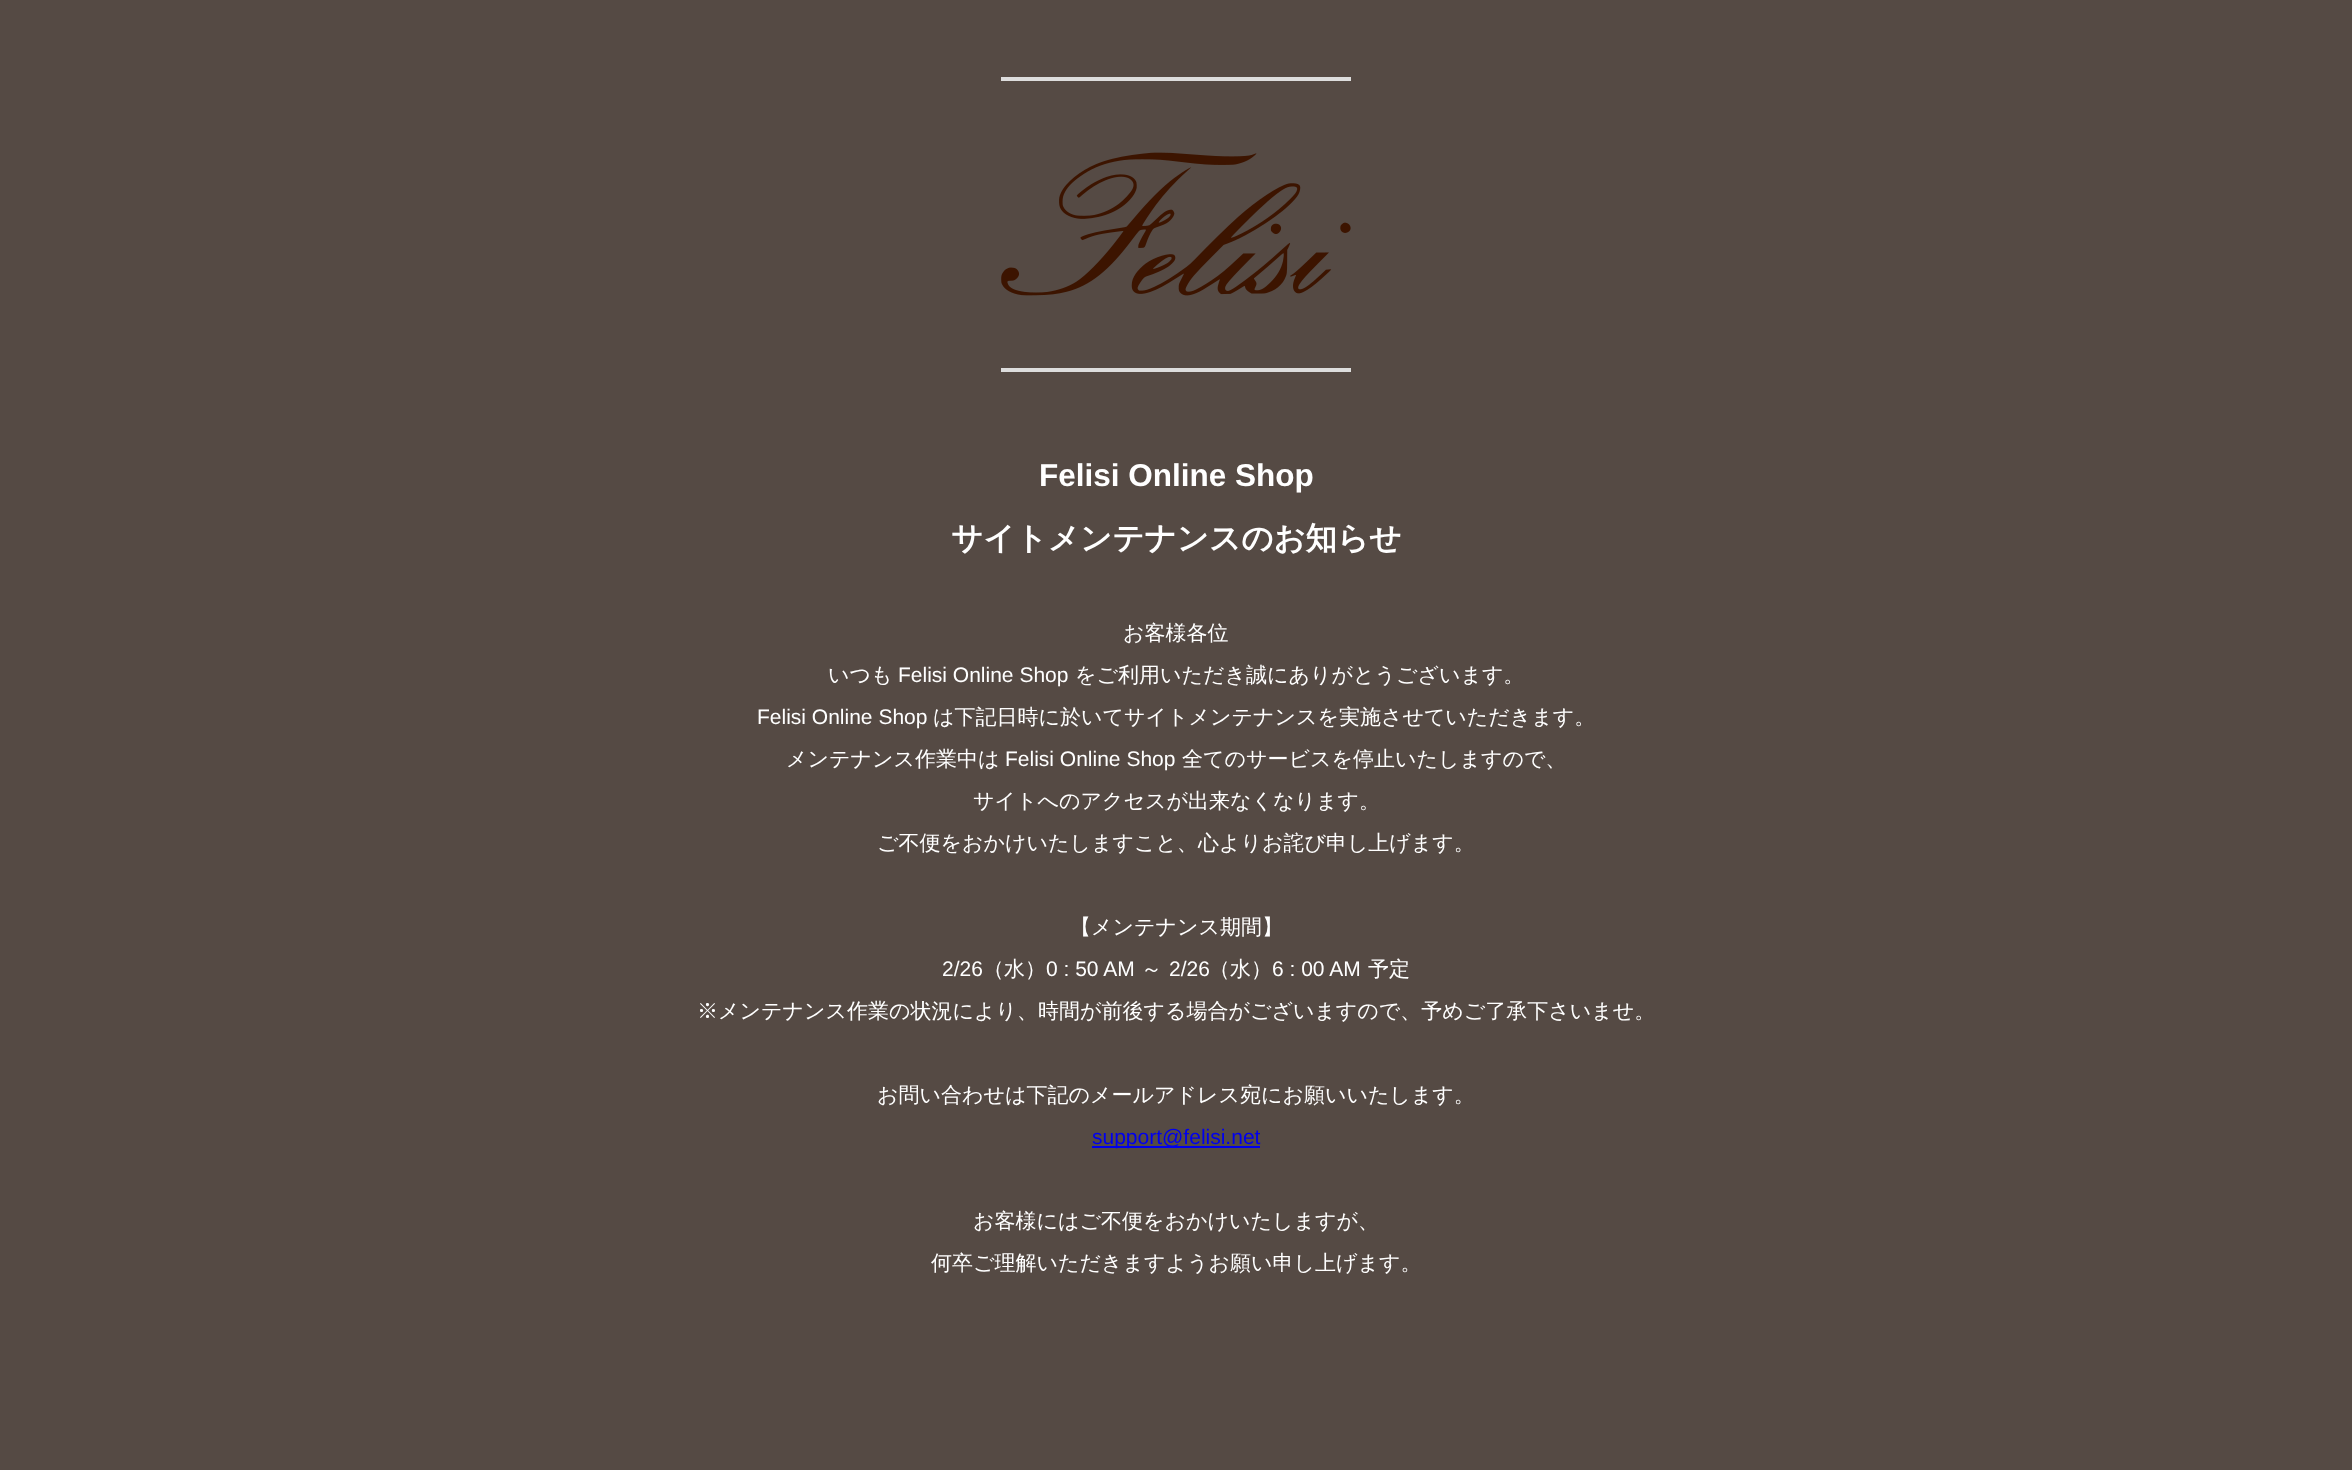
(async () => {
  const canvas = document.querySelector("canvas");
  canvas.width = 2352;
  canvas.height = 1470;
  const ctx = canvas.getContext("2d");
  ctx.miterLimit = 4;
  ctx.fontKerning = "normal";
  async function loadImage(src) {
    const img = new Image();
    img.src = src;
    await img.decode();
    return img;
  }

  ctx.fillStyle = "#554a44";
  ctx.fillRect(0, 0, 2352, 1470);
  ctx.fillStyle = "#dddddd";
  ctx.fillRect(1001, 77, 350, 4);
  ctx.fillRect(1001, 368, 350, 4);
  ctx.drawImage(await loadImage("img/1.png"), 1001, 152, 350, 144);
  ctx.fillStyle = "#0000ee";
  ctx.fillRect(1092, 1146, 168, 2);
  ctx.font = "bold 31.5px Liberation Sans";
  ctx.fillStyle = "#ffffff";
  ctx.fillText("Felisi Online Shop", 1039, 486);
  ctx.font = "bold 31.5px WenQuanYi Zen Hei";
  ctx.fillText("サイトメンテナンスのお知らせ", 951, 549);
  ctx.font = "500 21px WenQuanYi Zen Hei";
  ctx.fillText("お客様各位", 1123, 640);
  ctx.fillText("いつも", 828, 682);
  ctx.font = "21px Liberation Sans";
  ctx.fillText("Felisi Online Shop", 898, 682);
  ctx.font = "500 21px WenQuanYi Zen Hei";
  ctx.fillText("をご利用いただき誠にありがとうございます。", 1075, 682);
  ctx.font = "21px Liberation Sans";
  ctx.fillText("Felisi Online Shop", 757, 724);
  ctx.font = "500 21px WenQuanYi Zen Hei";
  ctx.fillText("は下記日時に於いてサイトメンテナンスを実施させていただきます。", 933, 724);
  ctx.fillText("メンテナンス作業中は", 786, 766);
  ctx.font = "21px Liberation Sans";
  ctx.fillText("Felisi Online Shop", 1005, 766);
  ctx.font = "500 21px WenQuanYi Zen Hei";
  for (const [text, x, y] of [
    ["全てのサービスを停止いたしますので、", 1182, 766],
    ["サイトへのアクセスが出来なくなります。", 973, 808],
    ["ご不便をおかけいたしますこと、心よりお詫び申し上げます。", 877, 850],
    ["【メンテナンス期間】", 1070, 934],
  ]) {
    ctx.fillText(text, x, y);
  }
  ctx.font = "21px Liberation Sans";
  ctx.fillText("2/26", 942, 976);
  ctx.font = "500 21px WenQuanYi Zen Hei";
  ctx.fillText("（水）", 983, 976);
  ctx.font = "21px Liberation Sans";
  ctx.fillText("0 : 50 AM", 1046, 976);
  ctx.font = "500 21px WenQuanYi Zen Hei";
  ctx.fillText("～", 1141, 976);
  ctx.font = "21px Liberation Sans";
  ctx.fillText("2/26", 1169, 976);
  ctx.font = "500 21px WenQuanYi Zen Hei";
  ctx.fillText("（水）", 1209, 976);
  ctx.font = "21px Liberation Sans";
  ctx.fillText("6 : 00 AM", 1272, 976);
  ctx.font = "500 21px WenQuanYi Zen Hei";
  for (const [text, x, y] of [
    ["予定", 1368, 976],
    ["※メンテナンス作業の状況により、時間が前後する場合がございますので、予めご了承下さいませ。", 697, 1018],
    ["お問い合わせは下記のメールアドレス宛にお願いいたします。", 877, 1102],
  ]) {
    ctx.fillText(text, x, y);
  }
  ctx.font = "21px Liberation Sans";
  ctx.fillStyle = "#0000ee";
  ctx.fillText("support@felisi.net", 1092, 1144);
  ctx.font = "500 21px WenQuanYi Zen Hei";
  ctx.fillStyle = "#ffffff";
  ctx.fillText("お客様にはご不便をおかけいたしますが、", 973, 1228);
  ctx.fillText("何卒ご理解いただきますようお願い申し上げます。", 931, 1270);
})();
